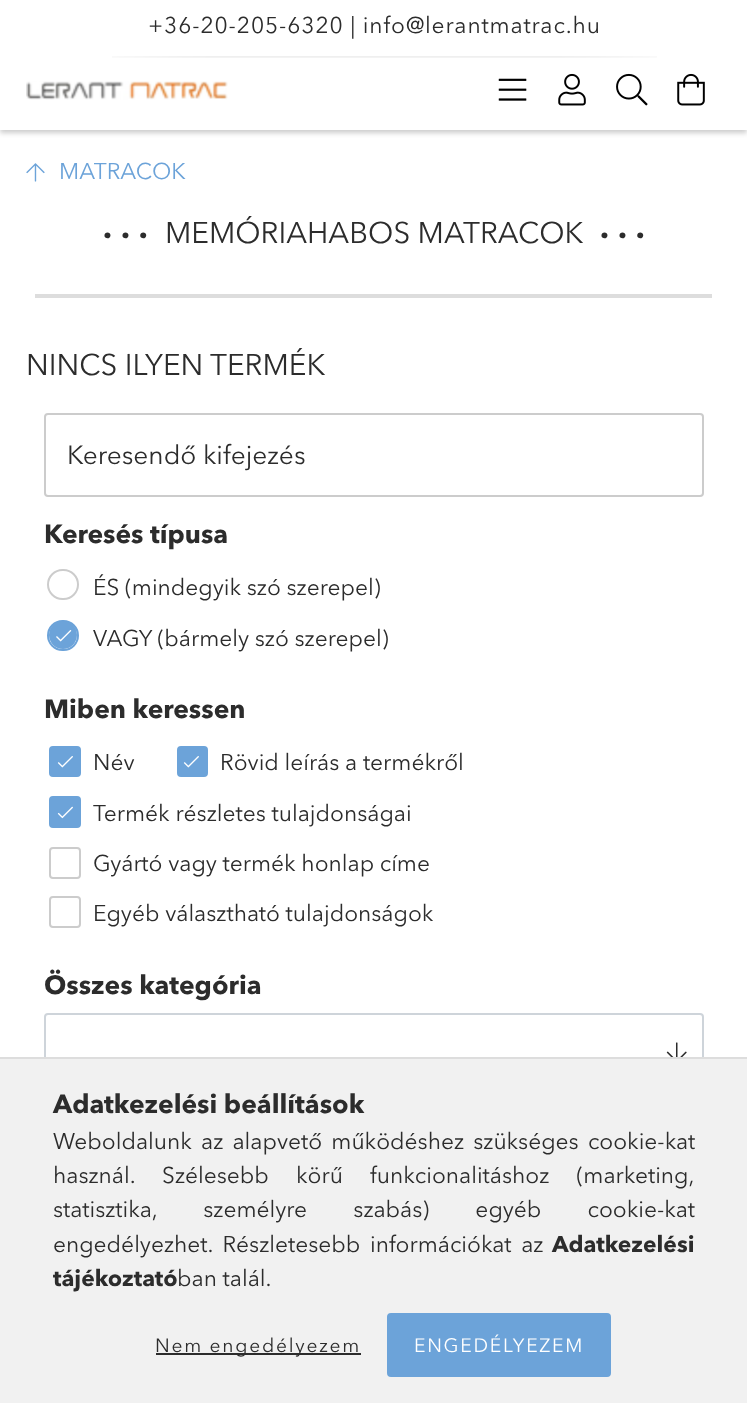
(async () => {
  const canvas = document.querySelector("canvas");
  canvas.width = 747;
  canvas.height = 1403;
  const ctx = canvas.getContext("2d");
  ctx.miterLimit = 4;
  ctx.fontKerning = "normal";
  async function loadImage(src) {
    const img = new Image();
    img.src = src;
    await img.decode();
    return img;
  }

  ctx.fillStyle = "#ffffff";
  ctx.fillRect(0, 0, 747, 1403);
  ctx.fillStyle = "rgba(0, 0, 0, 0.2)";
  ctx.filter = "blur(2.5px)";
  ctx.beginPath();
  ctx.rect(0, 4, 747, 129);
  ctx.fill();
  ctx.filter = "none";
  ctx.fillStyle = "#ffffff";
  ctx.fillRect(0, 0, 747, 130);
  ctx.drawImage(await loadImage("img/1.png"), 112, 56, 545, 2);
  ctx.drawImage(await loadImage("img/2.png"), 26, 81, 202, 19);
  ctx.drawImage(await loadImage("img/3.png"), 498, 78, 29, 23);
  ctx.drawImage(await loadImage("img/4.png"), 558, 73, 28, 33);
  ctx.drawImage(await loadImage("img/5.png"), 616, 73, 32, 33);
  ctx.drawImage(await loadImage("img/6.png"), 677, 73, 28, 33);
  ctx.drawImage(await loadImage("img/7.png"), 26, 163, 19, 19);
  ctx.fillStyle = "#dddddd";
  ctx.fillRect(35, 294, 677, 4);
  ctx.beginPath();
  ctx.roundRect(45, 414, 658, 82, 3);
  ctx.strokeStyle = "#cccccc";
  ctx.lineWidth = 2;
  ctx.stroke();
  ctx.beginPath();
  ctx.roundRect(48, 570, 30, 29, 14.5);
  ctx.stroke();
  ctx.beginPath();
  ctx.roundRect(48, 621, 30, 29, 14.5);
  ctx.strokeStyle = "#6ca3d9";
  ctx.stroke();
  ctx.fillStyle = "#6ca3d9";
  ctx.beginPath();
  ctx.arc(63, 635, 14, 0, Math.PI * 2);
  ctx.fill();
  ctx.drawImage(await loadImage("img/8.png"), 56, 630, 16, 12);
  ctx.beginPath();
  ctx.roundRect(50, 747, 30, 29, 3);
  ctx.fill();
  ctx.stroke();
  ctx.drawImage(await loadImage("img/9.png"), 57, 756, 16, 12);
  ctx.beginPath();
  ctx.roundRect(178, 747, 29, 29, 3);
  ctx.fill();
  ctx.stroke();
  ctx.drawImage(await loadImage("img/9.png"), 183, 756, 16, 12);
  ctx.beginPath();
  ctx.roundRect(50, 797, 30, 30, 3);
  ctx.fill();
  ctx.stroke();
  ctx.drawImage(await loadImage("img/10.png"), 57, 806, 16, 13);
  ctx.beginPath();
  ctx.roundRect(50, 848, 30, 30, 3);
  ctx.strokeStyle = "#cccccc";
  ctx.stroke();
  ctx.beginPath();
  ctx.roundRect(50, 897, 30, 30, 3);
  ctx.stroke();
  ctx.beginPath();
  ctx.roundRect(45, 1014, 658, 84, 3);
  ctx.strokeStyle = "#ced4da";
  ctx.stroke();
  ctx.drawImage(await loadImage("img/11.png"), 666, 1042, 21, 15);
  for (const [x, y, w, h, color] of [
    [0, 1059, 747, 344, "#f1f1f1"],
    [0, 1057, 747, 2, "#dddddd"],
    [156, 1353, 205, 2, "#2c2c2c"],
  ]) {
    ctx.fillStyle = color;
    ctx.fillRect(x, y, w, h);
  }
  ctx.fillStyle = "#6ca3d9";
  ctx.beginPath();
  ctx.roundRect(388, 1314, 222, 62, 3);
  ctx.fill();
  ctx.strokeStyle = "#6ca3d9";
  ctx.stroke();
  ctx.letterSpacing = "0.9px";
  ctx.font = "22.75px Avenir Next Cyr";
  ctx.fillStyle = "#2c2c2c";
  ctx.fillText("+36-20-205-6320 | info@lerantmatrac.hu", 148, 33);
  ctx.letterSpacing = "0px";
  ctx.fillStyle = "#6ca3d9";
  ctx.fillText("MATRACOK", 59, 179);
  ctx.letterSpacing = "9px";
  ctx.font = "bold 29.75px Avenir Next Cyr";
  ctx.fillStyle = "#2c2c2c";
  ctx.fillText("∙∙∙", 103, 244);
  ctx.letterSpacing = "0px";
  ctx.font = "29.75px Avenir Next Cyr";
  ctx.fillText("MEMÓRIAHABOS MATRACOK", 165, 243);
  ctx.letterSpacing = "9px";
  ctx.font = "bold 29.75px Avenir Next Cyr";
  ctx.fillText("∙∙∙", 600, 244);
  ctx.letterSpacing = "0px";
  ctx.font = "29.75px Avenir Next Cyr";
  ctx.fillText("NINCS ILYEN TERMÉK", 26, 375);
  ctx.font = "26.25px Avenir Next Cyr";
  ctx.fillText("Keresendő kifejezés", 67, 464);
  ctx.font = "bold 26.25px Avenir Next Cyr";
  ctx.fillText("Keresés típusa", 44, 543);
  ctx.font = "22.75px Avenir Next Cyr";
  ctx.fillText("ÉS (mindegyik szó szerepel)", 93, 595);
  ctx.fillText("VAGY (bármely szó szerepel)", 93, 646);
  ctx.font = "bold 26.25px Avenir Next Cyr";
  ctx.fillText("Miben keressen", 44, 718);
  ctx.font = "22.75px Avenir Next Cyr";
  for (const [text, x, y] of [
    ["Név", 93, 770],
    ["Rövid leírás a termékről", 220, 770],
    ["Termék részletes tulajdonságai", 93, 821],
    ["Gyártó vagy termék honlap címe", 93, 871],
    ["Egyéb választható tulajdonságok", 93, 921],
  ]) {
    ctx.fillText(text, x, y);
  }
  ctx.font = "bold 26.25px Avenir Next Cyr";
  ctx.fillText("Összes kategória", 44, 994);
  ctx.fillText("Adatkezelési beállítások", 53, 1113);
  ctx.wordSpacing = "3.5px";
  ctx.font = "22.75px Avenir Next Cyr";
  ctx.fillText("Weboldalunk az alapvető működéshez szükséges cookie-kat", 53, 1149);
  ctx.wordSpacing = "21.5px";
  ctx.fillText("használ. Szélesebb körű funkcionalitáshoz (marketing,", 53, 1183);
  ctx.wordSpacing = "40.5px";
  ctx.fillText("statisztika, személyre szabás) egyéb cookie-kat", 53, 1217);
  ctx.wordSpacing = "4px";
  ctx.fillText("engedélyezhet. Részletesebb információkat az", 53, 1252);
  ctx.wordSpacing = "0px";
  ctx.font = "bold 22.75px Avenir Next Cyr";
  ctx.fillText("Adatkezelési", 552, 1252);
  ctx.fillText("tájékoztató", 53, 1286);
  ctx.font = "22.75px Avenir Next Cyr";
  ctx.fillText("ban talál.", 177, 1286);
  ctx.letterSpacing = "1.75px";
  ctx.font = "19.25px Avenir Next Cyr";
  ctx.fillText("Nem engedélyezem", 155, 1352);
  ctx.fillStyle = "#ffffff";
  ctx.fillText("ENGEDÉLYEZEM", 414, 1352);
})();
